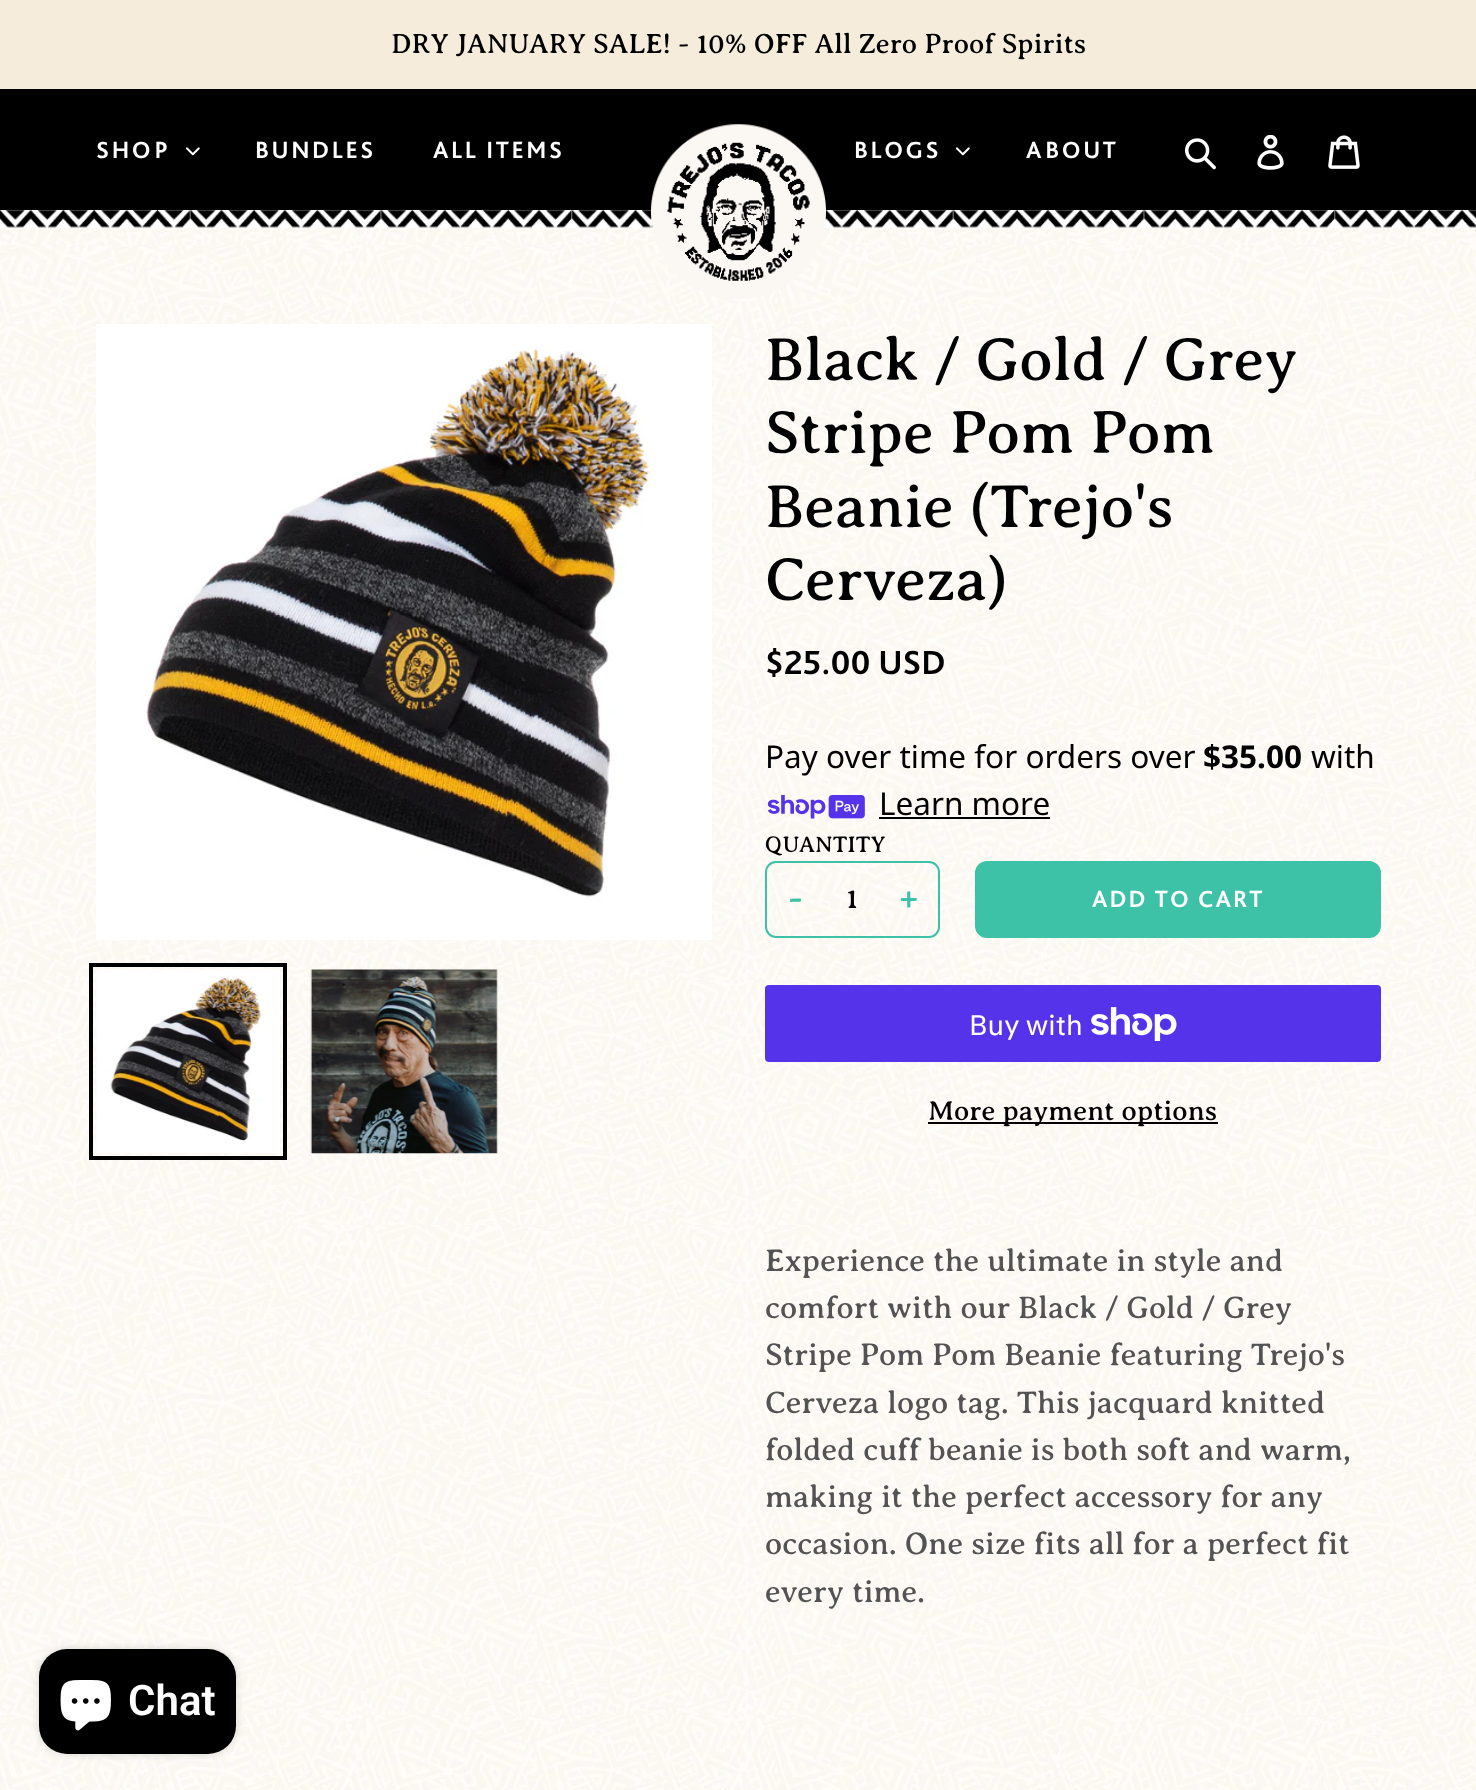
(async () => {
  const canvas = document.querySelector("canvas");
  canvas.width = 1476;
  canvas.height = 1790;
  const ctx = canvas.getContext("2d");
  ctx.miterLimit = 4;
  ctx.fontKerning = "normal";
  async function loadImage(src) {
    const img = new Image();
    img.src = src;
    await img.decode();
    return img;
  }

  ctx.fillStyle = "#ffffff";
  ctx.fillRect(0, 0, 1476, 1790);
  ctx.drawImage(await loadImage("img/1.png"), 0, 228, 1476, 1562);
  ctx.fillStyle = "#f5ecdb";
  ctx.fillRect(0, 0, 1476, 89);
  ctx.fillStyle = "#000000";
  ctx.fillRect(0, 89, 1476, 121);
  ctx.drawImage(await loadImage("img/7.png"), 0, 210, 1476, 18);
  ctx.drawImage(await loadImage("img/2.png"), 651, 124, 175, 175);
  ctx.drawImage(await loadImage("img/3.png"), 1185, 138, 31, 32);
  ctx.drawImage(await loadImage("img/4.png"), 1257, 135, 27, 35);
  ctx.drawImage(await loadImage("img/5.png"), 1328, 135, 32, 34);
  ctx.drawImage(await loadImage("img/6.png"), 186, 147, 14, 9);
  ctx.drawImage(await loadImage("img/6.png"), 956, 147, 14, 9);
  ctx.drawImage(await loadImage("img/8.png"), 96, 324, 616, 616);
  ctx.strokeStyle = "#000000";
  ctx.lineWidth = 4;
  ctx.strokeRect(91, 965, 194, 193);
  ctx.drawImage(await loadImage("img/9.png"), 96, 969, 184, 184);
  ctx.drawImage(await loadImage("img/10.png"), 310, 969, 188, 185);
  ctx.drawImage(await loadImage("img/11.png"), 767, 795, 98, 24);
  ctx.fillRect(879, 817, 171, 2);
  ctx.beginPath();
  ctx.roundRect(766, 862, 173, 75, 10);
  ctx.strokeStyle = "#3dc1a7";
  ctx.lineWidth = 2;
  ctx.stroke();
  ctx.fillStyle = "#3dc1a7";
  ctx.beginPath();
  ctx.roundRect(976, 862, 404, 75, 11);
  ctx.fill();
  ctx.stroke();
  ctx.fillStyle = "#5433eb";
  ctx.beginPath();
  ctx.roundRect(765, 985, 616, 77, 4);
  ctx.fill();
  ctx.drawImage(await loadImage("img/12.png"), 1091, 1007, 86, 34);
  ctx.fillStyle = "#000000";
  ctx.fillRect(928, 1122, 290, 2);
  ctx.fillStyle = "rgba(0, 0, 0, 0.15)";
  ctx.filter = "blur(4.5px)";
  ctx.beginPath();
  ctx.roundRect(39, 1649, 197, 105, 28);
  ctx.fill();
  ctx.filter = "none";
  ctx.fillStyle = "#000000";
  ctx.beginPath();
  ctx.roundRect(39, 1649, 197, 105, 28);
  ctx.fill();
  ctx.drawImage(await loadImage("img/13.png"), 60, 1680, 51, 51);
  ctx.font = "28px Averia Serif Libre";
  ctx.fillText("DRY JANUARY SALE! - 10% OFF All Zero Proof Spirits", 391, 53);
  ctx.letterSpacing = "2.6px";
  ctx.font = "bold 24.5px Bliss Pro";
  ctx.fillStyle = "#ffffff";
  for (const [text, x, y] of [
    ["SHOP", 96, 158],
    ["BUNDLES", 255, 158],
    ["ALL ITEMS", 433, 158],
    ["BLOGS", 854, 158],
    ["ABOUT", 1026, 158],
  ]) {
    ctx.fillText(text, x, y);
  }
  ctx.letterSpacing = "0px";
  ctx.font = "61.25px Averia Serif Libre";
  ctx.fillStyle = "#000000";
  for (const [text, x, y] of [
    ["Black / Gold / Grey", 765, 380],
    ["Stripe Pom Pom", 765, 453],
    ["Beanie (Trejo's", 765, 527],
    ["Cerveza)", 765, 600],
  ]) {
    ctx.fillText(text, x, y);
  }
  ctx.font = "bold 35px Bliss Pro";
  ctx.fillText("$25.00 USD", 765, 674);
  ctx.font = "31.5px Noto Sans";
  ctx.fillText("Pay over time for orders over", 765, 768);
  ctx.font = "bold 31.5px Noto Sans";
  ctx.fillText("$35.00", 1203, 768);
  ctx.font = "31.5px Noto Sans";
  ctx.fillText("with", 1311, 768);
  ctx.fillText("Learn more", 879, 815);
  ctx.font = "22.75px Averia Serif Libre";
  ctx.fillText("QUANTITY", 765, 852);
  ctx.font = "bold 35px Averia Serif Libre";
  ctx.fillStyle = "#3dc1a7";
  ctx.fillText("-", 788, 910);
  ctx.font = "28px Averia Serif Libre";
  ctx.fillStyle = "#000000";
  ctx.fillText("1", 846, 908);
  ctx.font = "bold 35px Averia Serif Libre";
  ctx.fillStyle = "#3dc1a7";
  ctx.fillText("+", 899, 910);
  ctx.letterSpacing = "2px";
  ctx.font = "bold 24.5px Bliss Pro";
  ctx.fillStyle = "#ffffff";
  ctx.fillText("ADD TO CART", 1092, 907);
  ctx.letterSpacing = "0px";
  ctx.font = "28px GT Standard";
  ctx.fillText("Buy with", 969, 1035);
  ctx.font = "28px Averia Serif Libre";
  ctx.fillStyle = "#000000";
  ctx.fillText("More payment options", 928, 1120);
  ctx.font = "31.5px Averia Serif Libre";
  ctx.fillStyle = "#535353";
  for (const [text, x, y] of [
    ["Experience the ultimate in style and", 765, 1271],
    ["comfort with our Black / Gold / Grey", 765, 1318],
    ["Stripe Pom Pom Beanie featuring Trejo's", 765, 1365],
    ["Cerveza logo tag. This jacquard knitted", 765, 1413],
    ["folded cuff beanie is both soft and warm,", 765, 1460],
    ["making it the perfect accessory for any", 765, 1507],
    ["occasion. One size fits all for a perfect fit", 765, 1554],
    ["every time.", 765, 1602],
  ]) {
    ctx.fillText(text, x, y);
  }
  ctx.font = "600 42px Roboto";
  ctx.fillStyle = "#ffffff";
  ctx.fillText("Chat", 128, 1715);
})();
